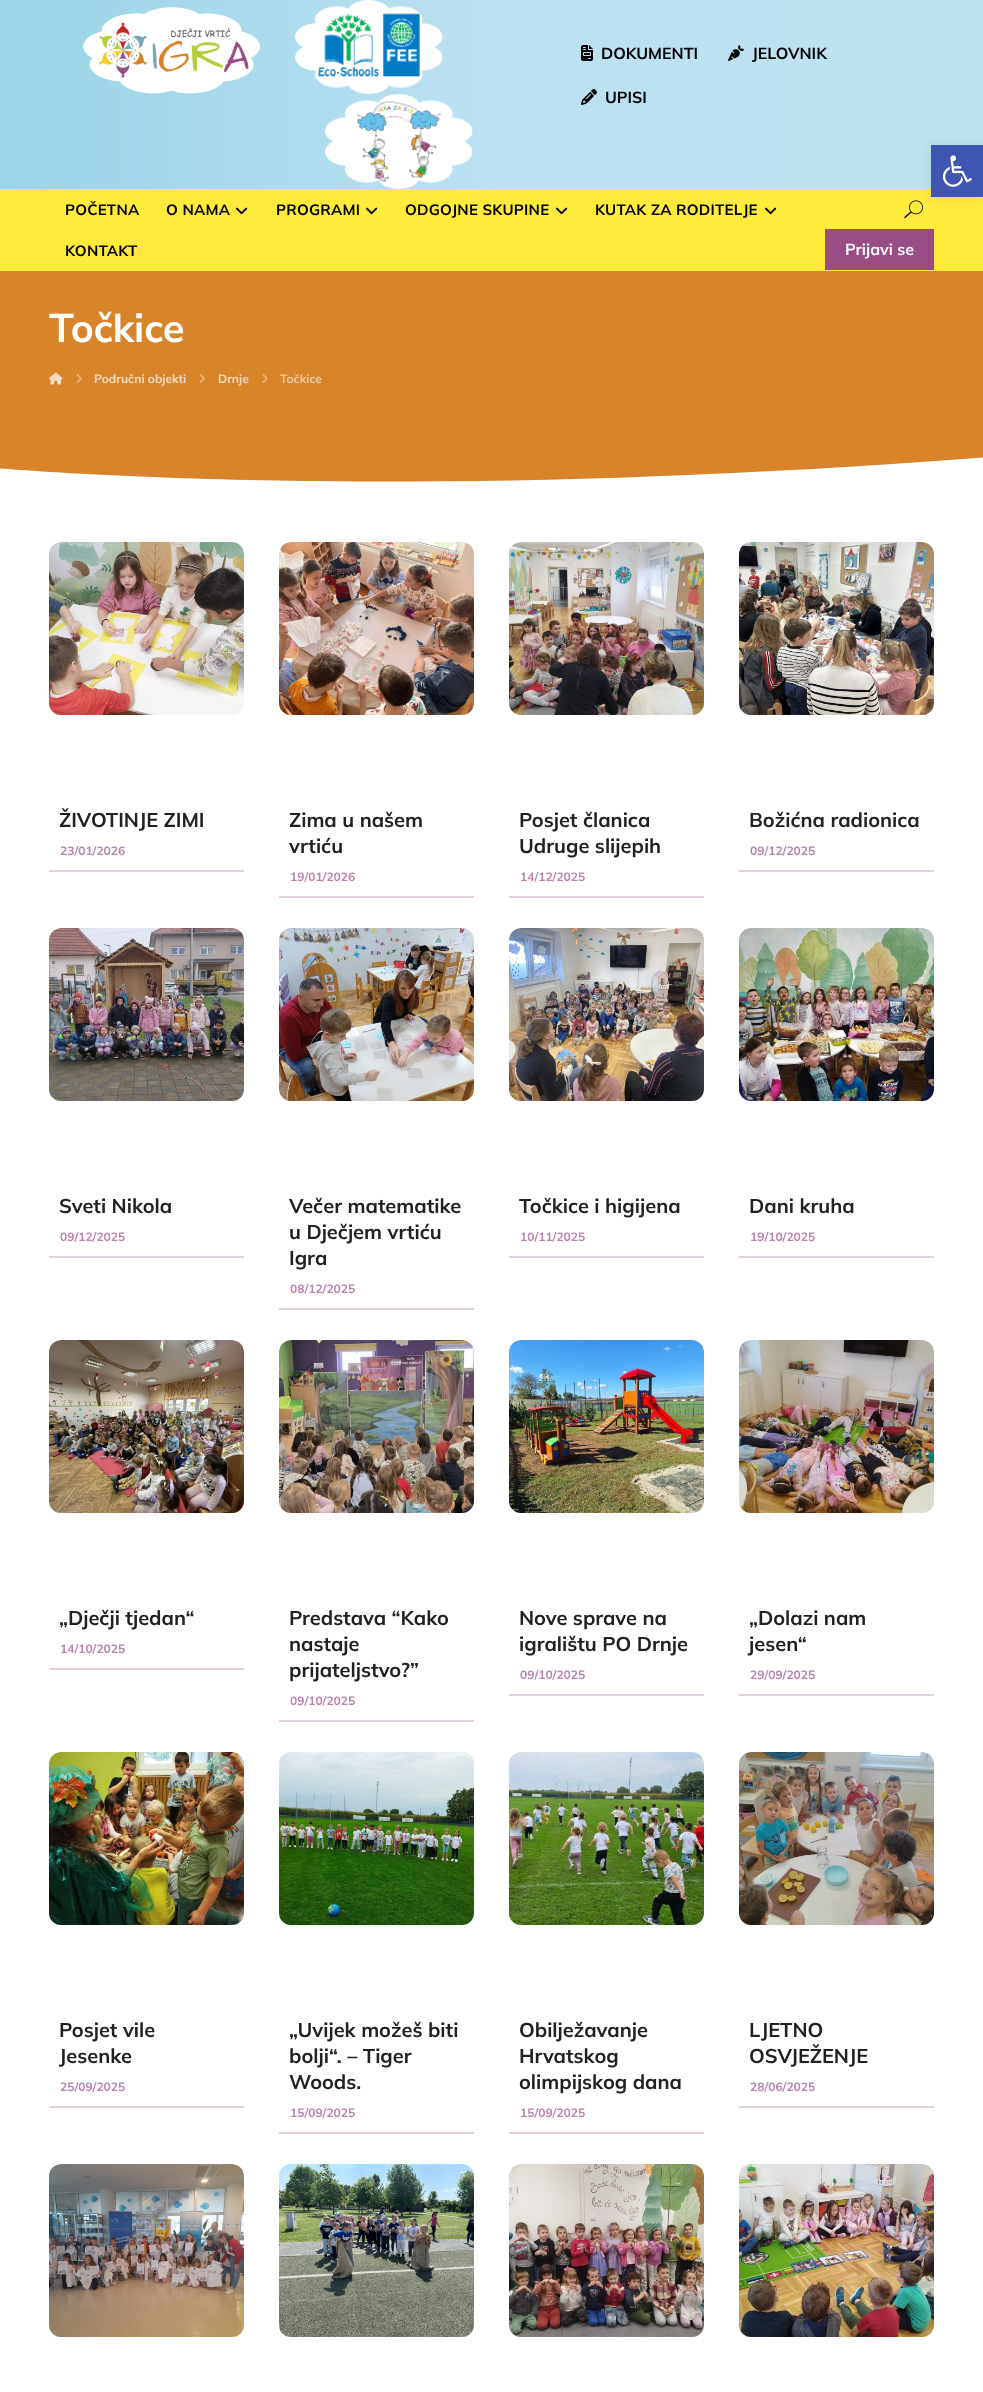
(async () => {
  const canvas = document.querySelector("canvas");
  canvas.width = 983;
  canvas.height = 2392;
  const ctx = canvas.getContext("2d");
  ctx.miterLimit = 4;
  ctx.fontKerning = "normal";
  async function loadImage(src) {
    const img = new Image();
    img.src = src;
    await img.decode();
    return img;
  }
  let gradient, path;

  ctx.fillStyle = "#ffffff";
  ctx.fillRect(0, 0, 983, 2392);
  gradient = ctx.createLinearGradient(0, 95, 983, 94);
  gradient.addColorStop(0, "#98d5e6");
  gradient.addColorStop(0.5, "#bbe1f1");
  gradient.addColorStop(1, "#bde2ef");
  ctx.fillStyle = gradient;
  ctx.fillRect(0, 0, 983, 189);
  ctx.drawImage(await loadImage("img/1.png"), 83, 7, 177, 87);
  ctx.drawImage(await loadImage("img/2.png"), 295, 0, 148, 94);
  ctx.drawImage(await loadImage("img/3.png"), 325, 94, 148, 95);
  ctx.drawImage(await loadImage("img/4.png"), 581, 45, 12, 16);
  ctx.drawImage(await loadImage("img/5.png"), 728, 45, 16, 16);
  ctx.drawImage(await loadImage("img/6.png"), 581, 89, 16, 16);
  ctx.fillStyle = "#ffeb3b";
  ctx.fillRect(0, 189, 983, 82);
  ctx.drawImage(await loadImage("img/7.png"), 236, 207, 12, 8);
  ctx.drawImage(await loadImage("img/7.png"), 366, 207, 12, 8);
  ctx.drawImage(await loadImage("img/7.png"), 556, 207, 12, 8);
  ctx.drawImage(await loadImage("img/7.png"), 765, 207, 12, 8);
  ctx.drawImage(await loadImage("img/8.png"), 904, 200, 19, 19);
  ctx.fillStyle = "#9a4d85";
  ctx.fillRect(825, 229, 109, 41);
  ctx.fillStyle = "#d8842a";
  ctx.fillRect(0, 271, 983, 136);
  ctx.drawImage(await loadImage("img/9.png"), 49, 372, 14, 13);
  ctx.drawImage(await loadImage("img/10.png"), 76, 374, 6, 9);
  ctx.drawImage(await loadImage("img/10.png"), 199, 374, 6, 9);
  ctx.drawImage(await loadImage("img/10.png"), 262, 374, 6, 9);
  ctx.save();
  ctx.beginPath();
  ctx.rect(0, 407, 983, 120);
  ctx.clip();
  path = new Path2D("M-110 458C-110 458 349 521 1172 441C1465 412 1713 395 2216 450L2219 405H-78Z");
  ctx.fill(path);
  ctx.restore();
  ctx.fillStyle = "#e4cfde";
  ctx.fillRect(49, 870, 195, 2);
  ctx.fillStyle = "#ededed";
  ctx.beginPath();
  ctx.roundRect(49, 542, 195, 173, 12);
  ctx.fill();
  ctx.drawImage(await loadImage("img/11.png"), 49, 542, 195, 173);
  ctx.fillStyle = "#e4cfde";
  ctx.fillRect(279, 896, 195, 2);
  ctx.fillStyle = "#ededed";
  ctx.beginPath();
  ctx.roundRect(279, 542, 195, 173, 12);
  ctx.fill();
  ctx.drawImage(await loadImage("img/12.png"), 279, 542, 195, 173);
  ctx.fillStyle = "#e4cfde";
  ctx.fillRect(509, 896, 195, 2);
  ctx.fillStyle = "#ededed";
  ctx.beginPath();
  ctx.roundRect(509, 542, 195, 173, 12);
  ctx.fill();
  ctx.drawImage(await loadImage("img/13.png"), 509, 542, 195, 173);
  ctx.fillStyle = "#e4cfde";
  ctx.fillRect(739, 870, 195, 2);
  ctx.fillStyle = "#ededed";
  ctx.beginPath();
  ctx.roundRect(739, 542, 195, 173, 12);
  ctx.fill();
  ctx.drawImage(await loadImage("img/14.png"), 739, 542, 195, 173);
  ctx.fillStyle = "#e4cfde";
  ctx.fillRect(49, 1256, 195, 2);
  ctx.fillStyle = "#ededed";
  ctx.beginPath();
  ctx.roundRect(49, 928, 195, 173, 12);
  ctx.fill();
  ctx.drawImage(await loadImage("img/15.png"), 49, 928, 195, 173);
  ctx.fillStyle = "#e4cfde";
  ctx.fillRect(279, 1308, 195, 2);
  ctx.fillStyle = "#ededed";
  ctx.beginPath();
  ctx.roundRect(279, 928, 195, 173, 12);
  ctx.fill();
  ctx.drawImage(await loadImage("img/16.png"), 279, 928, 195, 173);
  ctx.fillStyle = "#e4cfde";
  ctx.fillRect(509, 1256, 195, 2);
  ctx.fillStyle = "#ededed";
  ctx.beginPath();
  ctx.roundRect(509, 928, 195, 173, 12);
  ctx.fill();
  ctx.drawImage(await loadImage("img/17.png"), 509, 928, 195, 173);
  ctx.fillStyle = "#e4cfde";
  ctx.fillRect(739, 1256, 195, 2);
  ctx.fillStyle = "#ededed";
  ctx.beginPath();
  ctx.roundRect(739, 928, 195, 173, 12);
  ctx.fill();
  ctx.drawImage(await loadImage("img/18.png"), 739, 928, 195, 173);
  ctx.fillStyle = "#e4cfde";
  ctx.fillRect(49, 1668, 195, 2);
  ctx.fillStyle = "#ededed";
  ctx.beginPath();
  ctx.roundRect(49, 1340, 195, 173, 12);
  ctx.fill();
  ctx.drawImage(await loadImage("img/19.png"), 49, 1340, 195, 173);
  ctx.fillStyle = "#e4cfde";
  ctx.fillRect(279, 1720, 195, 2);
  ctx.fillStyle = "#ededed";
  ctx.beginPath();
  ctx.roundRect(279, 1340, 195, 173, 12);
  ctx.fill();
  ctx.drawImage(await loadImage("img/20.png"), 279, 1340, 195, 173);
  ctx.fillStyle = "#e4cfde";
  ctx.fillRect(509, 1694, 195, 2);
  ctx.fillStyle = "#ededed";
  ctx.beginPath();
  ctx.roundRect(509, 1340, 195, 173, 12);
  ctx.fill();
  ctx.drawImage(await loadImage("img/21.png"), 509, 1340, 195, 173);
  ctx.fillStyle = "#e4cfde";
  ctx.fillRect(739, 1694, 195, 2);
  ctx.fillStyle = "#ededed";
  ctx.beginPath();
  ctx.roundRect(739, 1340, 195, 173, 12);
  ctx.fill();
  ctx.drawImage(await loadImage("img/22.png"), 739, 1340, 195, 173);
  ctx.fillStyle = "#e4cfde";
  ctx.fillRect(49, 2106, 195, 2);
  ctx.fillStyle = "#ededed";
  ctx.beginPath();
  ctx.roundRect(49, 1752, 195, 173, 12);
  ctx.fill();
  ctx.drawImage(await loadImage("img/23.png"), 49, 1752, 195, 173);
  ctx.fillStyle = "#e4cfde";
  ctx.fillRect(279, 2132, 195, 2);
  ctx.fillStyle = "#ededed";
  ctx.beginPath();
  ctx.roundRect(279, 1752, 195, 173, 12);
  ctx.fill();
  ctx.drawImage(await loadImage("img/24.png"), 279, 1752, 195, 173);
  ctx.fillStyle = "#e4cfde";
  ctx.fillRect(509, 2132, 195, 2);
  ctx.fillStyle = "#ededed";
  ctx.beginPath();
  ctx.roundRect(509, 1752, 195, 173, 12);
  ctx.fill();
  ctx.drawImage(await loadImage("img/25.png"), 509, 1752, 195, 173);
  ctx.fillStyle = "#e4cfde";
  ctx.fillRect(739, 2106, 195, 2);
  ctx.fillStyle = "#ededed";
  ctx.beginPath();
  ctx.roundRect(739, 1752, 195, 173, 12);
  ctx.fill();
  ctx.drawImage(await loadImage("img/26.png"), 739, 1752, 195, 173);
  ctx.beginPath();
  ctx.roundRect(49, 2164, 195, 173, 12);
  ctx.fill();
  ctx.drawImage(await loadImage("img/27.png"), 49, 2164, 195, 173);
  ctx.beginPath();
  ctx.roundRect(279, 2164, 195, 173, 12);
  ctx.fill();
  ctx.drawImage(await loadImage("img/28.png"), 279, 2164, 195, 173);
  ctx.beginPath();
  ctx.roundRect(509, 2164, 195, 173, 12);
  ctx.fill();
  ctx.drawImage(await loadImage("img/29.png"), 509, 2164, 195, 173);
  ctx.beginPath();
  ctx.roundRect(739, 2164, 195, 173, 12);
  ctx.fill();
  ctx.drawImage(await loadImage("img/30.png"), 739, 2164, 195, 173);
  ctx.fillStyle = "rgba(0, 0, 0, 0.1)";
  ctx.filter = "blur(5px)";
  ctx.beginPath();
  ctx.rect(931, 145, 52, 52);
  ctx.fill();
  ctx.filter = "none";
  ctx.fillStyle = "#4054b2";
  ctx.fillRect(931, 145, 52, 52);
  ctx.drawImage(await loadImage("img/31.png"), 942, 155, 30, 32);
  ctx.font = "bold 16px Mulish";
  ctx.fillStyle = "#000000";
  for (const [text, x, y] of [
    ["DOKUMENTI", 601, 59],
    ["JELOVNIK", 752, 59],
    ["UPISI", 605, 103],
  ]) {
    ctx.fillText(text, x, y);
  }
  ctx.letterSpacing = "0.25px";
  ctx.font = "bold 15px Mulish";
  for (const [text, x, y] of [
    ["POČETNA", 65, 215],
    ["O NAMA", 166, 215],
    ["PROGRAMI", 276, 215],
    ["ODGOJNE SKUPINE", 405, 215],
    ["KUTAK ZA RODITELJE", 595, 215],
    ["KONTAKT", 65, 256],
  ]) {
    ctx.fillText(text, x, y);
  }
  ctx.letterSpacing = "0px";
  ctx.font = "bold 16px Mulish";
  ctx.fillStyle = "#ffffff";
  ctx.fillText("Prijavi se", 845, 255);
  ctx.font = "bold 40px Nunito Sans";
  ctx.fillText("Točkice", 49, 342);
  ctx.font = "bold 12px Mulish";
  ctx.fillStyle = "#f0dbc3";
  ctx.fillText("Područni objekti", 94, 383);
  ctx.fillText("Drnje", 218, 383);
  ctx.fillStyle = "#ebcaa5";
  ctx.fillText("Točkice", 280, 383);
  ctx.font = "bold 20px Mulish";
  ctx.fillStyle = "#212121";
  ctx.fillText("ŽIVOTINJE ZIMI", 59, 827);
  ctx.font = "bold 12px Mulish";
  ctx.fillStyle = "#b882aa";
  ctx.fillText("23/01/2026", 60, 855);
  ctx.font = "bold 20px Mulish";
  ctx.fillStyle = "#212121";
  ctx.fillText("Zima u našem", 289, 827);
  ctx.fillText("vrtiću", 289, 853);
  ctx.font = "bold 12px Mulish";
  ctx.fillStyle = "#b882aa";
  ctx.fillText("19/01/2026", 290, 881);
  ctx.font = "bold 20px Mulish";
  ctx.fillStyle = "#212121";
  ctx.fillText("Posjet članica", 519, 827);
  ctx.fillText("Udruge slijepih", 519, 853);
  ctx.font = "bold 12px Mulish";
  ctx.fillStyle = "#b882aa";
  ctx.fillText("14/12/2025", 520, 881);
  ctx.font = "bold 20px Mulish";
  ctx.fillStyle = "#212121";
  ctx.fillText("Božićna radionica", 749, 827);
  ctx.font = "bold 12px Mulish";
  ctx.fillStyle = "#b882aa";
  ctx.fillText("09/12/2025", 750, 855);
  ctx.font = "bold 20px Mulish";
  ctx.fillStyle = "#212121";
  ctx.fillText("Sveti Nikola", 59, 1213);
  ctx.font = "bold 12px Mulish";
  ctx.fillStyle = "#b882aa";
  ctx.fillText("09/12/2025", 60, 1241);
  ctx.font = "bold 20px Mulish";
  ctx.fillStyle = "#212121";
  for (const [text, x, y] of [
    ["Večer matematike", 289, 1213],
    ["u Dječjem vrtiću", 289, 1239],
    ["Igra", 289, 1265],
  ]) {
    ctx.fillText(text, x, y);
  }
  ctx.font = "bold 12px Mulish";
  ctx.fillStyle = "#b882aa";
  ctx.fillText("08/12/2025", 290, 1293);
  ctx.font = "bold 20px Mulish";
  ctx.fillStyle = "#212121";
  ctx.fillText("Točkice i higijena", 519, 1213);
  ctx.font = "bold 12px Mulish";
  ctx.fillStyle = "#b882aa";
  ctx.fillText("10/11/2025", 520, 1241);
  ctx.font = "bold 20px Mulish";
  ctx.fillStyle = "#212121";
  ctx.fillText("Dani kruha", 749, 1213);
  ctx.font = "bold 12px Mulish";
  ctx.fillStyle = "#b882aa";
  ctx.fillText("19/10/2025", 750, 1241);
  ctx.font = "bold 20px Mulish";
  ctx.fillStyle = "#212121";
  ctx.fillText("„Dječji tjedan“", 59, 1625);
  ctx.font = "bold 12px Mulish";
  ctx.fillStyle = "#b882aa";
  ctx.fillText("14/10/2025", 60, 1653);
  ctx.font = "bold 20px Mulish";
  ctx.fillStyle = "#212121";
  for (const [text, x, y] of [
    ["Predstava “Kako", 289, 1625],
    ["nastaje", 289, 1651],
    ["prijateljstvo?”", 289, 1677],
  ]) {
    ctx.fillText(text, x, y);
  }
  ctx.font = "bold 12px Mulish";
  ctx.fillStyle = "#b882aa";
  ctx.fillText("09/10/2025", 290, 1705);
  ctx.font = "bold 20px Mulish";
  ctx.fillStyle = "#212121";
  ctx.fillText("Nove sprave na", 519, 1625);
  ctx.fillText("igralištu PO Drnje", 519, 1651);
  ctx.font = "bold 12px Mulish";
  ctx.fillStyle = "#b882aa";
  ctx.fillText("09/10/2025", 520, 1679);
  ctx.font = "bold 20px Mulish";
  ctx.fillStyle = "#212121";
  ctx.fillText("„Dolazi nam", 749, 1625);
  ctx.fillText("jesen“", 749, 1651);
  ctx.font = "bold 12px Mulish";
  ctx.fillStyle = "#b882aa";
  ctx.fillText("29/09/2025", 750, 1679);
  ctx.font = "bold 20px Mulish";
  ctx.fillStyle = "#212121";
  ctx.fillText("Posjet vile", 59, 2037);
  ctx.fillText("Jesenke", 59, 2063);
  ctx.font = "bold 12px Mulish";
  ctx.fillStyle = "#b882aa";
  ctx.fillText("25/09/2025", 60, 2091);
  ctx.font = "bold 20px Mulish";
  ctx.fillStyle = "#212121";
  for (const [text, x, y] of [
    ["„Uvijek možeš biti", 289, 2037],
    ["bolji“. – Tiger", 289, 2063],
    ["Woods.", 289, 2089],
  ]) {
    ctx.fillText(text, x, y);
  }
  ctx.font = "bold 12px Mulish";
  ctx.fillStyle = "#b882aa";
  ctx.fillText("15/09/2025", 290, 2117);
  ctx.font = "bold 20px Mulish";
  ctx.fillStyle = "#212121";
  for (const [text, x, y] of [
    ["Obilježavanje", 519, 2037],
    ["Hrvatskog", 519, 2063],
    ["olimpijskog dana", 519, 2089],
  ]) {
    ctx.fillText(text, x, y);
  }
  ctx.font = "bold 12px Mulish";
  ctx.fillStyle = "#b882aa";
  ctx.fillText("15/09/2025", 520, 2117);
  ctx.font = "bold 20px Mulish";
  ctx.fillStyle = "#212121";
  ctx.fillText("LJETNO", 749, 2037);
  ctx.fillText("OSVJEŽENJE", 749, 2063);
  ctx.font = "bold 12px Mulish";
  ctx.fillStyle = "#b882aa";
  ctx.fillText("28/06/2025", 750, 2091);
})();
